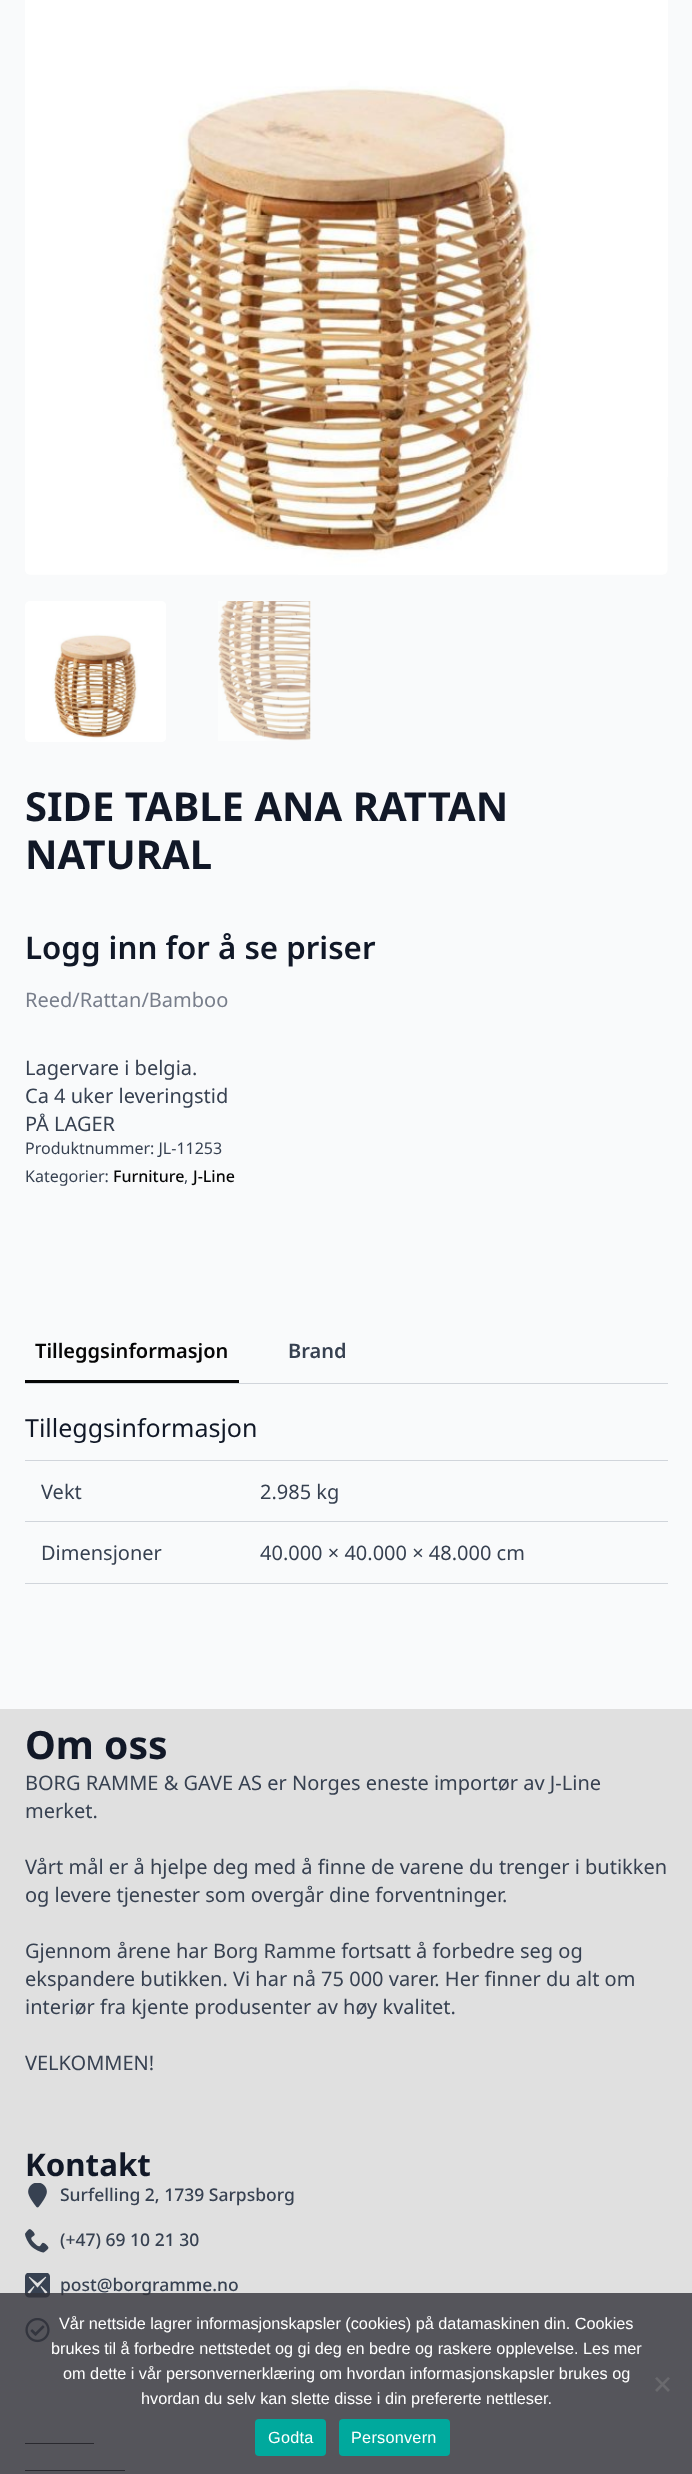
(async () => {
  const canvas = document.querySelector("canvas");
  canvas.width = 692;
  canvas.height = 2474;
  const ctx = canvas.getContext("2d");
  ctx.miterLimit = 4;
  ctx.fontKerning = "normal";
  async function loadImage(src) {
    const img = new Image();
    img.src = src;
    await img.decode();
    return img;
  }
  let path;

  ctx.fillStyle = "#f9fafb";
  ctx.fillRect(0, 0, 692, 2474);
  ctx.drawImage(await loadImage("img/1.png"), 25, 0, 643, 575);
  ctx.drawImage(await loadImage("img/2.png"), 25, 601, 141, 141);
  ctx.drawImage(await loadImage("img/3.png"), 218, 601, 93, 140);
  for (const [x, y, w, h, color] of [
    [25, 1383, 643, 1, "#d1d5db"],
    [25, 1380, 214, 3, "#060606"],
    [25, 1460, 643, 1, "#d1d5db"],
    [25, 1521, 643, 1, "#d1d5db"],
    [25, 1583, 643, 1, "#d1d5db"],
    [0, 1709, 692, 765, "#e0e0e0"],
  ]) {
    ctx.fillStyle = color;
    ctx.fillRect(x, y, w, h);
  }
  ctx.drawImage(await loadImage("img/4.png"), 28, 2183, 19, 25);
  ctx.drawImage(await loadImage("img/5.png"), 25, 2229, 24, 24);
  ctx.drawImage(await loadImage("img/6.png"), 25, 2273, 25, 25);
  ctx.drawImage(await loadImage("img/7.png"), 25, 2318, 25, 25);
  ctx.fillStyle = "#060606";
  ctx.fillRect(25, 2443, 69, 1);
  ctx.fillRect(25, 2470, 100, 1);
  ctx.font = "bold 40px Noto Sans";
  ctx.fillStyle = "#111827";
  ctx.fillText("SIDE TABLE ANA RATTAN", 25, 821);
  ctx.fillText("NATURAL", 25, 869);
  ctx.font = "600 31.25px Noto Sans";
  ctx.fillText("Logg inn for å se priser", 25, 959);
  ctx.font = "20px Noto Sans";
  ctx.fillStyle = "#787e8b";
  ctx.fillText("Reed/Rattan/Bamboo", 25, 1007);
  ctx.fillStyle = "#374151";
  for (const [text, x, y] of [
    ["Lagervare i belgia.", 25, 1075],
    ["Ca 4 uker leveringstid", 25, 1103],
    ["PÅ LAGER", 25, 1131],
  ]) {
    ctx.fillText(text, x, y);
  }
  ctx.font = "16px Noto Sans";
  ctx.fillText("Produktnummer: JL-11253", 25, 1154);
  ctx.fillText("Kategorier:", 25, 1182);
  ctx.font = "500 16px Noto Sans";
  ctx.fillStyle = "#060606";
  ctx.fillText("Furniture", 113, 1182);
  ctx.font = "16px Noto Sans";
  ctx.fillStyle = "#374151";
  ctx.fillText(",", 184, 1182);
  ctx.font = "500 16px Noto Sans";
  ctx.fillStyle = "#060606";
  ctx.fillText("J-Line", 193, 1182);
  ctx.font = "600 20px Noto Sans";
  ctx.fillText("Tilleggsinformasjon", 35, 1358);
  ctx.fillStyle = "#374151";
  ctx.fillText("Brand", 288, 1358);
  ctx.font = "25px Noto Sans";
  ctx.fillStyle = "#111827";
  ctx.fillText("Tilleggsinformasjon", 25, 1437);
  ctx.font = "20px Noto Sans";
  ctx.fillStyle = "#374151";
  for (const [text, x, y] of [
    ["Vekt", 41, 1499],
    ["2.985 kg", 260, 1499],
    ["Dimensjoner", 41, 1560],
    ["40.000 × 40.000 × 48.000 cm", 260, 1560],
  ]) {
    ctx.fillText(text, x, y);
  }
  ctx.font = "bold 39px Noto Sans";
  ctx.fillStyle = "#111827";
  ctx.fillText("Om oss", 25, 1759);
  ctx.font = "20px Noto Sans";
  ctx.fillStyle = "#374151";
  for (const [text, x, y] of [
    ["BORG RAMME & GAVE AS er Norges eneste importør av J-Line", 25, 1790],
    ["merket.", 25, 1818],
    ["Vårt mål er å hjelpe deg med å finne de varene du trenger i butikken", 25, 1874],
    ["og levere tjenester som overgår dine forventninger.", 25, 1902],
    ["Gjennom årene har Borg Ramme fortsatt å forbedre seg og", 25, 1958],
    ["ekspandere butikken. Vi har nå 75 000 varer. Her finner du alt om", 25, 1986],
    ["interiør fra kjente produsenter av høy kvalitet.", 25, 2014],
    ["VELKOMMEN!", 25, 2070],
  ]) {
    ctx.fillText(text, x, y);
  }
  ctx.font = "bold 31.25px Noto Sans";
  ctx.fillStyle = "#111827";
  ctx.fillText("Kontakt", 25, 2176);
  ctx.font = "500 17.5px Noto Sans";
  ctx.fillStyle = "#374151";
  for (const [text, x, y] of [
    ["Surfelling 2, 1739 Sarpsborg", 60, 2201],
    ["(+47) 69 10 21 30", 60, 2246],
    ["post@borgramme.no", 60, 2291],
  ]) {
    ctx.fillText(text, x, y);
  }
  ctx.fillStyle = "rgba(50, 50, 58, 0.8)";
  ctx.fillRect(0, 2293, 692, 181);
  ctx.font = "16.25px Liberation Sans";
  ctx.fillStyle = "#ffffff";
  for (const [text, x, y] of [
    ["Vår nettside lagrer informasjonskapsler (cookies) på datamaskinen din. Cookies", 59, 2329],
    ["brukes til å forbedre nettstedet og gi deg en bedre og raskere opplevelse. Les mer", 51, 2354],
    ["om dette i vår personvernerklæring om hvordan informasjonskapsler brukes og", 63, 2379],
    ["hvordan du selv kan slette disse i din prefererte nettleser.", 141, 2404],
  ]) {
    ctx.fillText(text, x, y);
  }
  ctx.fillStyle = "#6a6a6e";
  path = new Path2D("M668 2377L670 2378.5L657 2392L655 2390Z");
  ctx.fill(path);
  path = new Path2D("M655 2378.5L657 2377L670 2390L668 2392Z");
  ctx.fill(path);
  ctx.fillStyle = "#00a99d";
  ctx.beginPath();
  ctx.roundRect(255, 2419, 71, 37, 4);
  ctx.fill();
  ctx.letterSpacing = "0.25px";
  ctx.fillStyle = "#ffffff";
  ctx.fillText("Godta", 268, 2443);
  ctx.fillStyle = "#00a99d";
  ctx.beginPath();
  ctx.roundRect(339, 2419, 111, 37, 4);
  ctx.fill();
  ctx.fillStyle = "#ffffff";
  ctx.fillText("Personvern", 351, 2443);
})();
